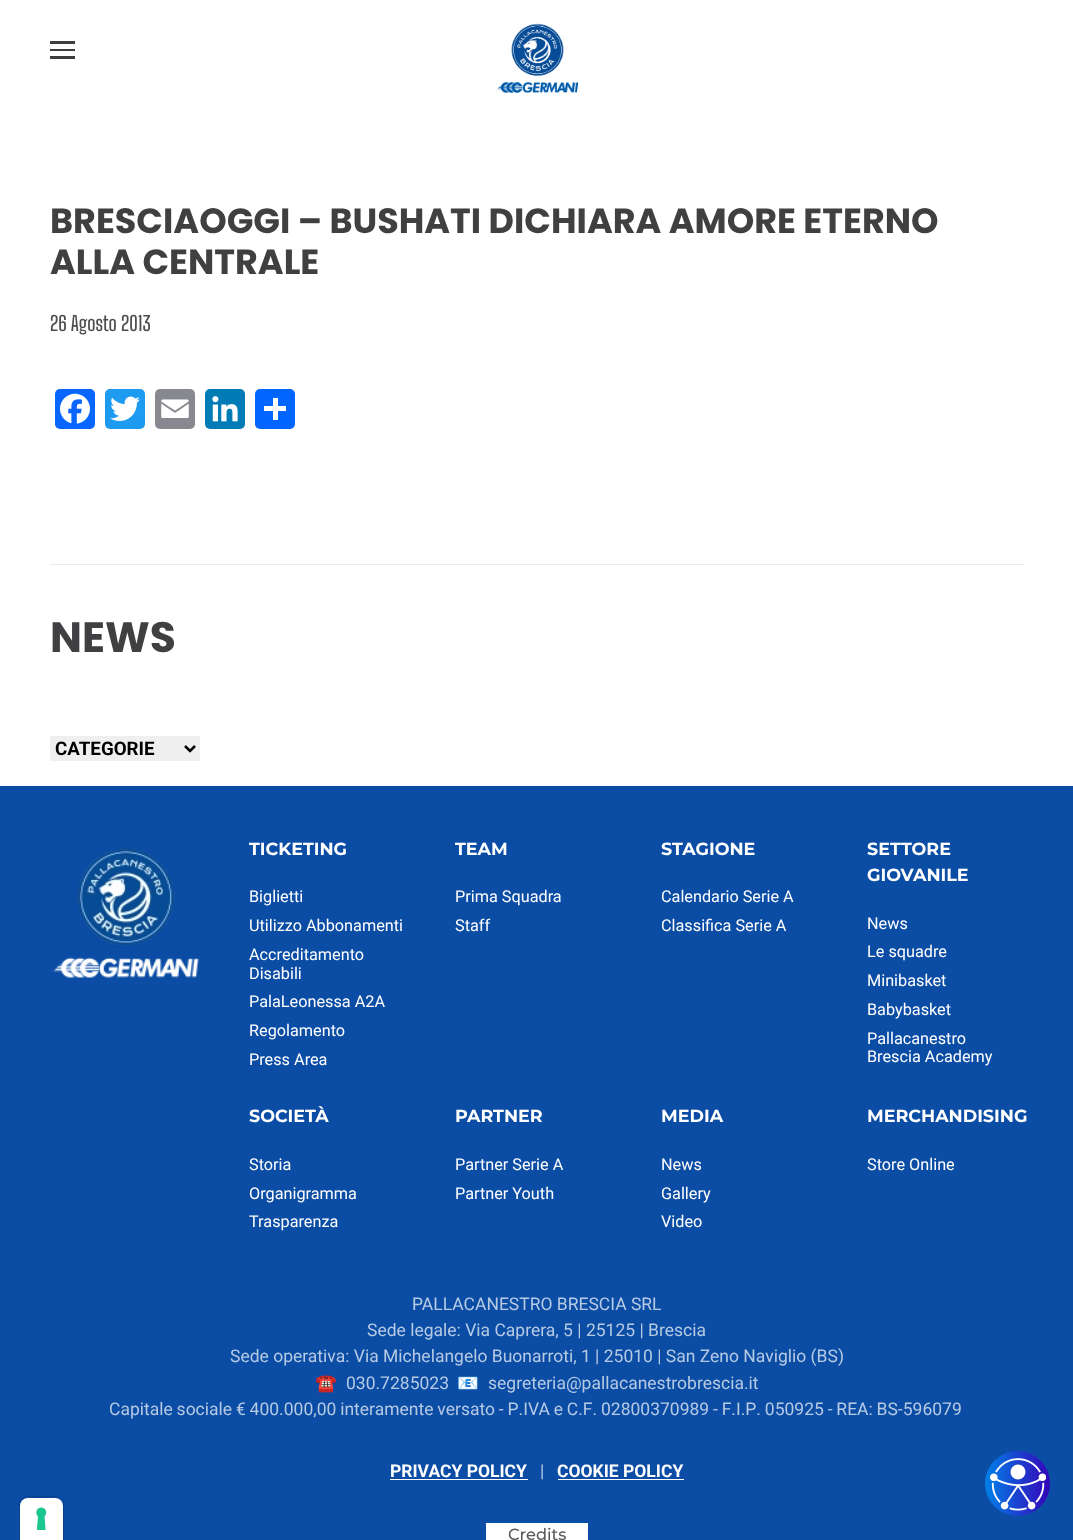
(async () => {
  const canvas = document.querySelector("canvas");
  canvas.width = 1073;
  canvas.height = 1540;
  const ctx = canvas.getContext("2d");
  ctx.miterLimit = 4;
  ctx.fontKerning = "normal";
  async function loadImage(src) {
    const img = new Image();
    img.src = src;
    await img.decode();
    return img;
  }
  let gradient, path;

  ctx.fillStyle = "#ffffff";
  ctx.fillRect(0, 0, 1073, 1540);
  for (const [x, y, w, h, color] of [
    [50, 41, 25, 3, "#3d3d3d"],
    [50, 49, 25, 2, "#3d3d3d"],
    [50, 56, 25, 3, "#3d3d3d"],
  ]) {
    ctx.fillStyle = color;
    ctx.fillRect(x, y, w, h);
  }
  ctx.drawImage(await loadImage("img/1.png"), 496, 23, 83, 70);
  ctx.fillStyle = "#0866ff";
  ctx.beginPath();
  ctx.roundRect(55, 389, 40, 40, 5);
  ctx.fill();
  ctx.drawImage(await loadImage("img/2.png"), 60, 393, 30, 31);
  ctx.fillStyle = "#1d9bf0";
  ctx.beginPath();
  ctx.roundRect(105, 389, 40, 40, 5);
  ctx.fill();
  ctx.drawImage(await loadImage("img/3.png"), 110, 396, 30, 25);
  ctx.fillStyle = "#888990";
  ctx.beginPath();
  ctx.roundRect(155, 389, 40, 40, 5);
  ctx.fill();
  ctx.drawImage(await loadImage("img/4.png"), 161, 399, 28, 19);
  ctx.fillStyle = "#007bb5";
  ctx.beginPath();
  ctx.roundRect(205, 389, 40, 40, 5);
  ctx.fill();
  ctx.drawImage(await loadImage("img/5.png"), 212, 396, 26, 26);
  ctx.fillStyle = "#0166ff";
  ctx.beginPath();
  ctx.roundRect(255, 389, 40, 40, 5);
  ctx.fill();
  for (const [x, y, w, h, color] of [
    [273, 398, 5, 22, "#ffffff"],
    [264, 406, 22, 5, "#ffffff"],
    [50, 564, 974, 1, "#eaeaea"],
    [50, 736, 150, 25, "#efefef"],
  ]) {
    ctx.fillStyle = color;
    ctx.fillRect(x, y, w, h);
  }
  path = new Path2D("M185 746L190 751L195 746");
  ctx.strokeStyle = "#000000";
  ctx.lineWidth = 2.5;
  ctx.stroke(path);
  ctx.fillStyle = "#0b4da5";
  ctx.fillRect(0, 786, 1073, 754);
  ctx.drawImage(await loadImage("img/6.png"), 53, 848, 146, 130);
  for (const [x, y, w, h, color] of [
    [390, 1479, 138, 1, "#ffffff"],
    [558, 1479, 126, 1, "#ffffff"],
    [486, 1523, 102, 17, "#ffffff"],
  ]) {
    ctx.fillStyle = color;
    ctx.fillRect(x, y, w, h);
  }
  path = new Path2D("M28 1496.5H55C59.5 1496.5 63.5 1500.5 63.5 1505V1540.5H19.5V1505C19.5 1500.5 23.5 1496.5 28 1496.5Z");
  ctx.strokeStyle = "#09418c";
  ctx.lineWidth = 1;
  ctx.stroke(path);
  ctx.beginPath();
  ctx.roundRect(20, 1498, 43, 42, [8, 8, 0, 0]);
  ctx.fill();
  ctx.drawImage(await loadImage("img/7.png"), 36, 1507, 11, 23);
  gradient = ctx.createLinearGradient(985, 1484, 1050, 1484);
  gradient.addColorStop(0, "#0081e8");
  gradient.addColorStop(0.25, "#0d62dc");
  gradient.addColorStop(0.5, "#1b42d0");
  gradient.addColorStop(0.75, "#2823c4");
  gradient.addColorStop(1, "#3503b8");
  ctx.fillStyle = gradient;
  ctx.beginPath();
  ctx.arc(1017.5, 1483.5, 32.5, 0, Math.PI * 2);
  ctx.fill();
  ctx.drawImage(await loadImage("img/8.png"), 990, 1458, 56, 53);
  ctx.font = "bold 35px Poppins";
  ctx.fillStyle = "#404042";
  ctx.fillText("BRESCIAOGGI – BUSHATI DICHIARA AMORE ETERNO", 50, 233);
  ctx.fillText("ALLA CENTRALE", 50, 274);
  ctx.font = "500 20px Big Shoulders Text";
  ctx.fillStyle = "#4e4d4d";
  ctx.fillText("26 Agosto 2013", 50, 331);
  ctx.font = "bold 42.5px Poppins";
  ctx.fillStyle = "#404042";
  ctx.fillText("NEWS", 50, 652);
  ctx.font = "bold 18.75px Roboto";
  ctx.fillStyle = "#000000";
  ctx.fillText("CATEGORIE", 55, 755);
  ctx.font = "100 17.5px 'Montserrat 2'";
  ctx.fillStyle = "#ffffff";
  ctx.fillText("TICKETING", 249, 855);
  ctx.font = "16.25px Roboto";
  for (const [text, x, y] of [
    ["Biglietti", 249, 902],
    ["Utilizzo Abbonamenti", 249, 931],
    ["Accreditamento", 249, 960],
    ["Disabili", 249, 979],
    ["PalaLeonessa A2A", 249, 1007],
    ["Regolamento", 249, 1036],
    ["Press Area", 249, 1065],
  ]) {
    ctx.fillText(text, x, y);
  }
  ctx.font = "100 17.5px 'Montserrat 2'";
  ctx.fillText("TEAM", 455, 855);
  ctx.font = "16.25px Roboto";
  ctx.fillText("Prima Squadra", 455, 902);
  ctx.fillText("Staff", 455, 931);
  ctx.font = "100 17.5px 'Montserrat 2'";
  ctx.fillText("STAGIONE", 661, 855);
  ctx.font = "16.25px Roboto";
  ctx.fillText("Calendario Serie A", 661, 902);
  ctx.fillText("Classifica Serie A", 661, 931);
  ctx.font = "100 17.5px 'Montserrat 2'";
  ctx.fillText("SETTORE", 867, 855);
  ctx.fillText("GIOVANILE", 867, 881);
  ctx.font = "16.25px Roboto";
  for (const [text, x, y] of [
    ["News", 867, 929],
    ["Le squadre", 867, 957],
    ["Minibasket", 867, 986],
    ["Babybasket", 867, 1015],
    ["Pallacanestro", 867, 1044],
    ["Brescia Academy", 867, 1062],
  ]) {
    ctx.fillText(text, x, y);
  }
  ctx.font = "100 17.5px 'Montserrat 2'";
  ctx.fillText("SOCIETÀ", 249, 1122);
  ctx.font = "16.25px Roboto";
  for (const [text, x, y] of [
    ["Storia", 249, 1170],
    ["Organigramma", 249, 1199],
    ["Trasparenza", 249, 1227],
  ]) {
    ctx.fillText(text, x, y);
  }
  ctx.font = "100 17.5px 'Montserrat 2'";
  ctx.fillText("PARTNER", 455, 1122);
  ctx.font = "16.25px Roboto";
  ctx.fillText("Partner Serie A", 455, 1170);
  ctx.fillText("Partner Youth", 455, 1199);
  ctx.font = "100 17.5px 'Montserrat 2'";
  ctx.fillText("MEDIA", 661, 1122);
  ctx.font = "16.25px Roboto";
  for (const [text, x, y] of [
    ["News", 661, 1170],
    ["Gallery", 661, 1199],
    ["Video", 661, 1227],
  ]) {
    ctx.fillText(text, x, y);
  }
  ctx.font = "100 17.5px 'Montserrat 2'";
  ctx.fillText("MERCHANDISING", 867, 1122);
  ctx.font = "16.25px Roboto";
  ctx.fillText("Store Online", 867, 1170);
  ctx.font = "17.5px Roboto";
  ctx.fillStyle = "#b6cae4";
  for (const [text, x, y] of [
    ["PALLACANESTRO BRESCIA SRL", 412, 1310],
    ["Sede legale: Via Caprera, 5 | 25125 | Brescia", 367, 1336],
    ["Sede operativa: Via Michelangelo Buonarroti, 1 | 25010 | San Zeno Naviglio (BS)", 230, 1362],
  ]) {
    ctx.fillText(text, x, y);
  }
  ctx.font = "17.5px Noto Color Emoji";
  ctx.fillText("☎️", 315, 1389);
  ctx.font = "17.5px Roboto";
  ctx.fillText("030.7285023", 346, 1389);
  ctx.font = "17.5px Noto Color Emoji";
  ctx.fillText("📧", 457, 1389);
  ctx.font = "17.5px Roboto";
  ctx.fillText("segreteria@pallacanestrobrescia.it", 488, 1389);
  ctx.wordSpacing = "-0.5px";
  ctx.fillText("Capitale sociale € 400.000,00 interamente versato - P.IVA e C.F. 02800370989 - F.I.P. 050925 - REA: BS-596079", 109, 1415);
  ctx.wordSpacing = "0px";
  ctx.font = "bold 17.5px Roboto";
  ctx.fillStyle = "#ffffff";
  ctx.fillText("PRIVACY POLICY", 390, 1477);
  ctx.font = "17.5px Roboto";
  ctx.fillStyle = "#b6cae4";
  ctx.fillText("|", 540, 1477);
  ctx.font = "bold 17.5px Roboto";
  ctx.fillStyle = "#ffffff";
  ctx.fillText("COOKIE POLICY", 557, 1477);
  ctx.font = "100 16.25px Montserrat";
  ctx.fillStyle = "#595959";
  ctx.fillText("Credits", 508, 1540);
})();
